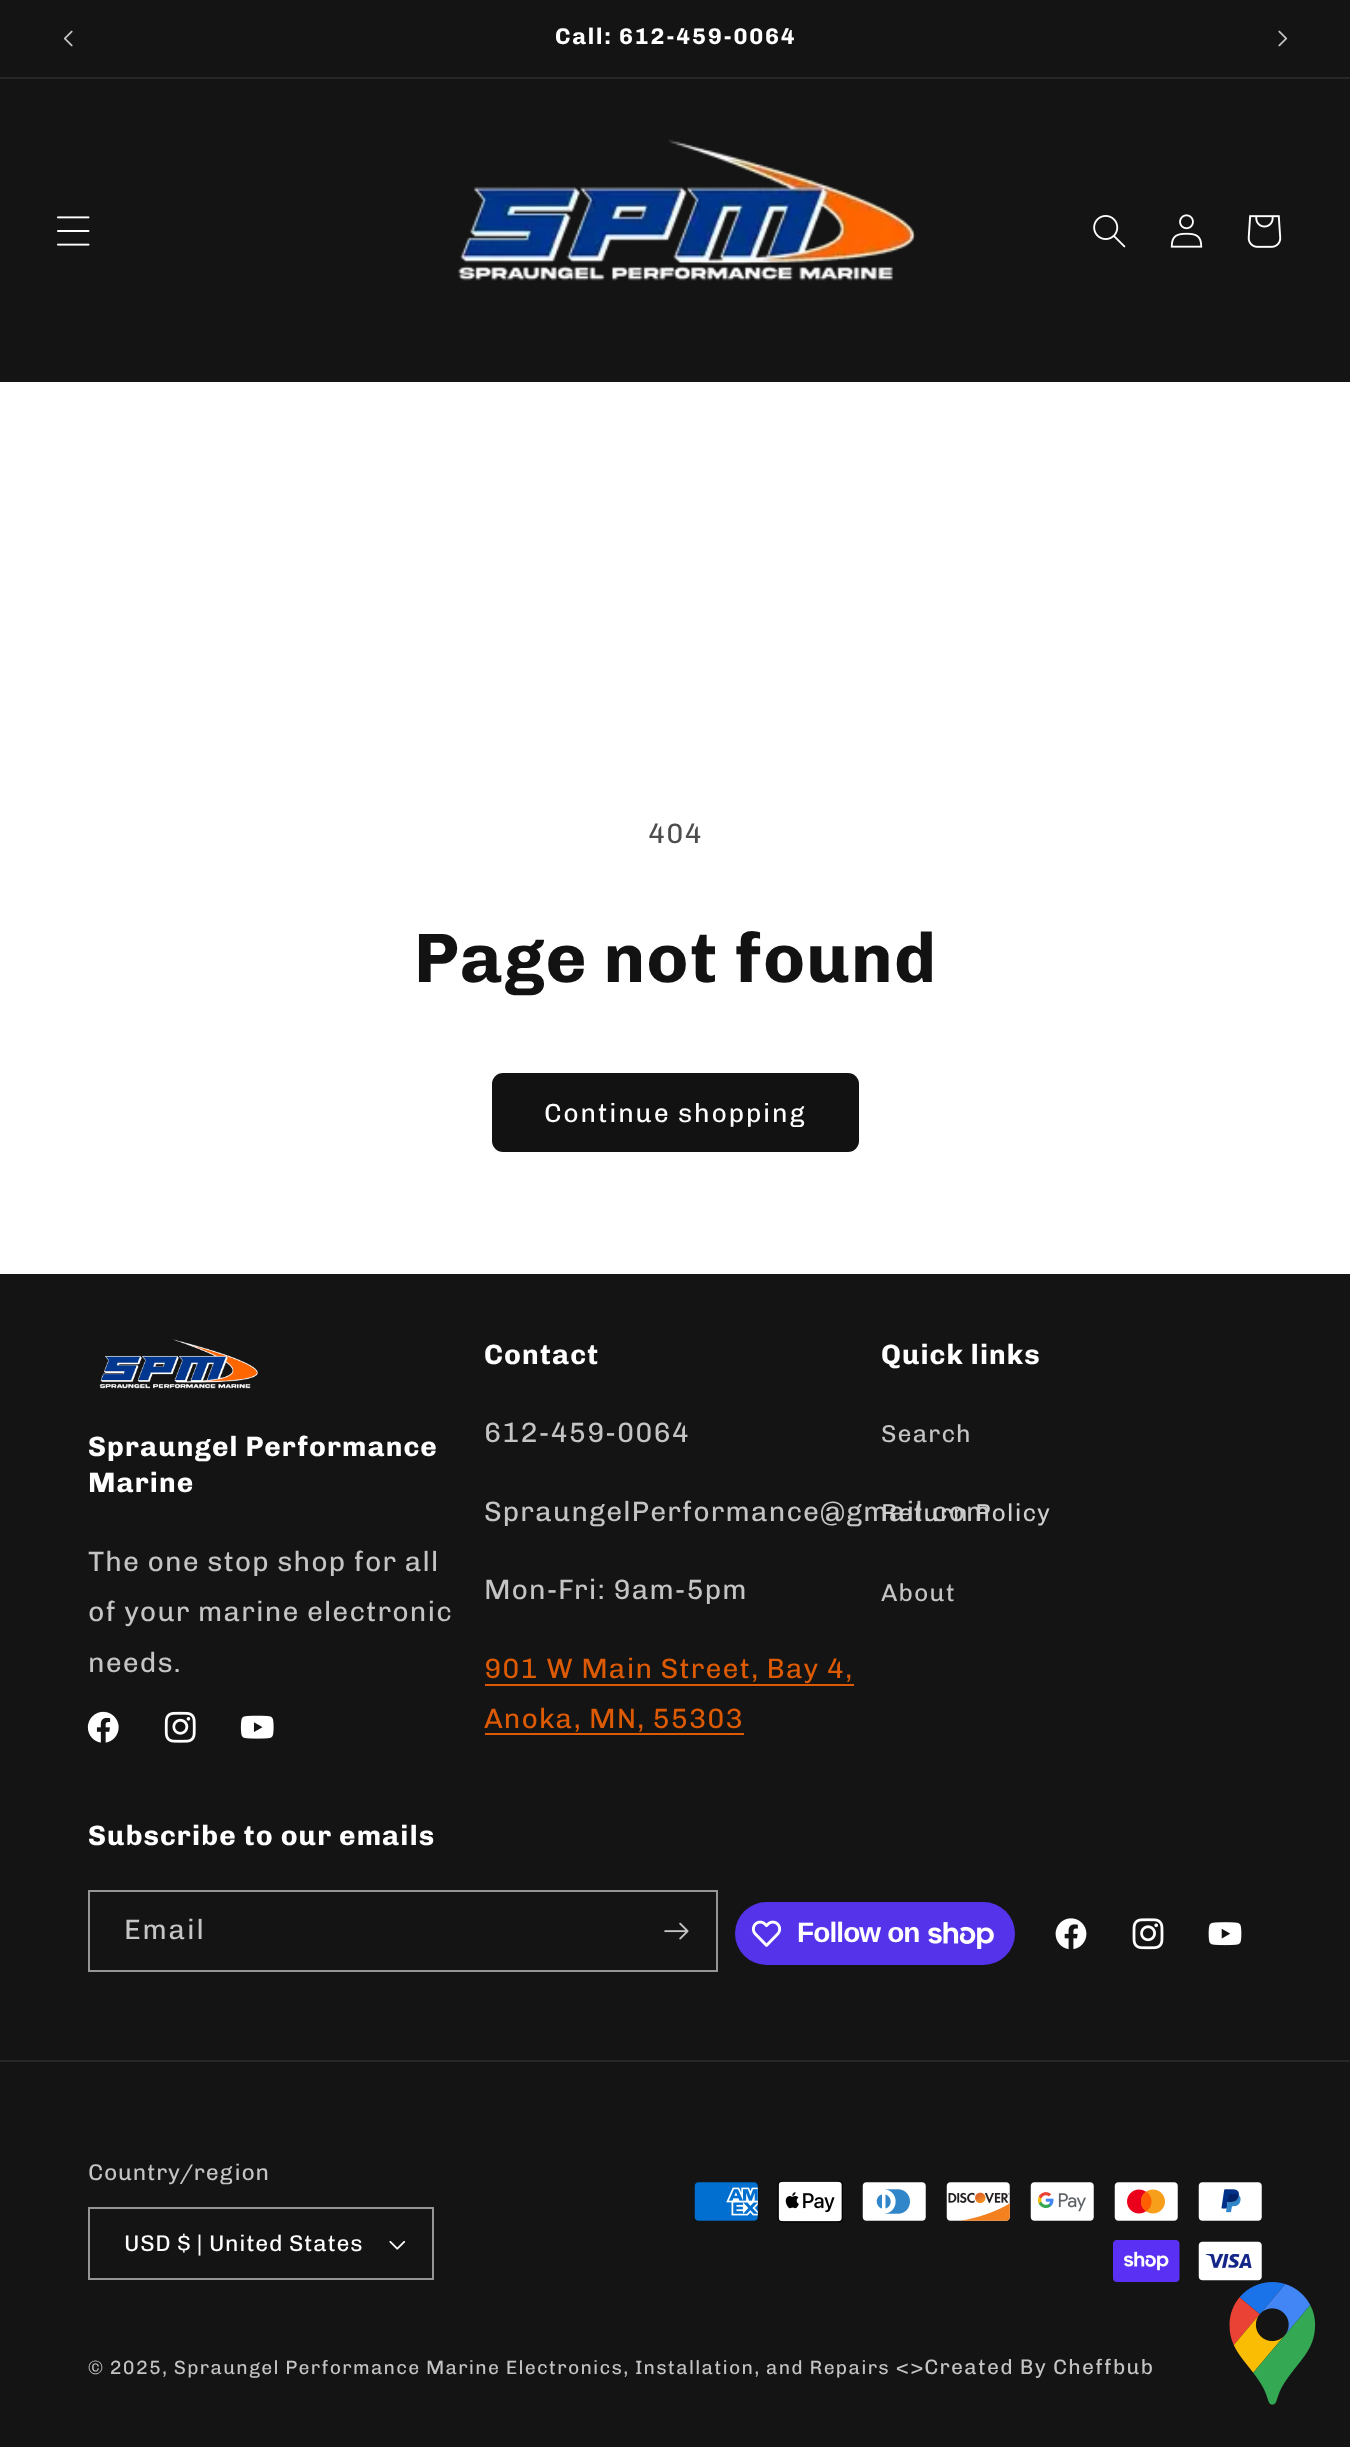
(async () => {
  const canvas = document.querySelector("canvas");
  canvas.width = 1350;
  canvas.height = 2447;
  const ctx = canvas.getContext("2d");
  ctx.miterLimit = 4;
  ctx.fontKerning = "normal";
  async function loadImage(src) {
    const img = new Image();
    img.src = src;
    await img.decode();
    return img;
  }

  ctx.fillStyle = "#ffffff";
  ctx.fillRect(0, 0, 1350, 2447);
  ctx.fillStyle = "#141414";
  ctx.fillRect(0, 0, 1350, 77);
  ctx.fillStyle = "#272727";
  ctx.fillRect(0, 77, 1350, 2);
  ctx.drawImage(await loadImage("img/1.png"), 63, 30, 10, 17);
  ctx.drawImage(await loadImage("img/2.png"), 1278, 30, 10, 17);
  ctx.fillStyle = "#141414";
  ctx.fillRect(0, 79, 1350, 303);
  ctx.drawImage(await loadImage("img/3.png"), 57, 216, 33, 30);
  ctx.drawImage(await loadImage("img/4.png"), 458, 139, 458, 142);
  ctx.drawImage(await loadImage("img/5.png"), 1093, 215, 33, 33);
  ctx.drawImage(await loadImage("img/6.png"), 1170, 214, 33, 34);
  ctx.drawImage(await loadImage("img/7.png"), 1247, 215, 35, 33);
  ctx.fillStyle = "#121212";
  ctx.beginPath();
  ctx.roundRect(492, 1073, 367, 79, 11);
  ctx.fill();
  ctx.fillStyle = "#141414";
  ctx.fillRect(0, 1274, 1350, 1173);
  ctx.drawImage(await loadImage("img/8.png"), 99, 1339, 159, 50);
  ctx.drawImage(await loadImage("img/9.png"), 87, 1711, 32, 32);
  ctx.drawImage(await loadImage("img/10.png"), 164, 1711, 32, 32);
  ctx.drawImage(await loadImage("img/11.png"), 240, 1715, 34, 24);
  ctx.fillStyle = "#dc5a03";
  ctx.fillRect(485, 1684, 369, 2);
  ctx.fillRect(485, 1733, 259, 2);
  ctx.strokeStyle = "#959595";
  ctx.lineWidth = 2;
  ctx.strokeRect(89, 1891, 628, 80);
  ctx.drawImage(await loadImage("img/12.png"), 664, 1922, 25, 18);
  ctx.fillStyle = "#5433eb";
  ctx.beginPath();
  ctx.roundRect(735, 1902, 280, 63, 31.5);
  ctx.fill();
  ctx.drawImage(await loadImage("img/13.png"), 751, 1920, 31, 27);
  ctx.drawImage(await loadImage("img/14.png"), 928, 1922, 66, 27);
  ctx.drawImage(await loadImage("img/15.png"), 1055, 1918, 32, 32);
  ctx.drawImage(await loadImage("img/16.png"), 1132, 1918, 32, 32);
  ctx.drawImage(await loadImage("img/17.png"), 1208, 1922, 34, 24);
  ctx.fillStyle = "#272727";
  ctx.fillRect(0, 2060, 1350, 2);
  ctx.drawImage(await loadImage("img/18.png"), 389, 2240, 17, 10);
  ctx.strokeRect(89, 2208, 344, 71);
  ctx.drawImage(await loadImage("img/19.png"), 694, 2182, 64, 39);
  ctx.drawImage(await loadImage("img/20.png"), 777, 2181, 66, 42);
  ctx.drawImage(await loadImage("img/21.png"), 862, 2182, 64, 39);
  ctx.drawImage(await loadImage("img/22.png"), 946, 2182, 64, 39);
  ctx.drawImage(await loadImage("img/23.png"), 1030, 2182, 64, 39);
  ctx.drawImage(await loadImage("img/24.png"), 1114, 2182, 64, 39);
  ctx.drawImage(await loadImage("img/25.png"), 1198, 2182, 64, 39);
  ctx.drawImage(await loadImage("img/26.png"), 1113, 2240, 67, 42);
  ctx.drawImage(await loadImage("img/27.png"), 1198, 2241, 64, 40);
  ctx.drawImage(await loadImage("img/28.png"), 1229, 2282, 87, 123);
  ctx.letterSpacing = "1.75px";
  ctx.font = "bold 22.75px Chivo";
  ctx.fillStyle = "#ffffff";
  ctx.fillText("Call: 612-459-0064", 555, 44);
  ctx.letterSpacing = "1.05px";
  ctx.font = "28px Chivo";
  ctx.fillStyle = "#4d4d4d";
  ctx.fillText("404", 648, 843);
  ctx.font = "bold 70px Chivo";
  ctx.fillStyle = "#121212";
  ctx.fillText("Page not found", 414, 982);
  ctx.letterSpacing = "1.75px";
  ctx.font = "26.25px Chivo";
  ctx.fillStyle = "#ffffff";
  ctx.fillText("Continue shopping", 544, 1122);
  ctx.letterSpacing = "1.05px";
  ctx.font = "bold 28px Chivo";
  ctx.fillText("Quick links", 881, 1364);
  ctx.font = "24.5px Chivo";
  ctx.fillStyle = "#c4c4c4";
  ctx.fillText("Search", 881, 1442);
  ctx.fillText("About", 881, 1601);
  ctx.font = "bold 28px Chivo";
  ctx.fillStyle = "#ffffff";
  ctx.fillText("Spraungel Performance", 88, 1456);
  ctx.fillText("Marine", 88, 1492);
  ctx.font = "28px Chivo";
  ctx.fillStyle = "#c4c4c4";
  for (const [text, x, y] of [
    ["The one stop shop for all", 88, 1571],
    ["of your marine electronic", 88, 1621],
    ["needs.", 88, 1672],
  ]) {
    ctx.fillText(text, x, y);
  }
  ctx.font = "bold 28px Chivo";
  ctx.fillStyle = "#ffffff";
  ctx.fillText("Contact", 484, 1364);
  ctx.font = "28px Chivo";
  ctx.fillStyle = "#c4c4c4";
  ctx.fillText("612-459-0064", 484, 1442);
  ctx.fillText("SpraungelPerformance@gmail.com", 484, 1521);
  ctx.font = "24.5px Chivo";
  ctx.fillStyle = "#cfcfcf";
  ctx.fillText("Return Policy", 881, 1521);
  ctx.font = "28px Chivo";
  ctx.fillStyle = "#c4c4c4";
  ctx.fillText("Mon-Fri: 9am-5pm", 484, 1599);
  ctx.fillStyle = "#dc5a03";
  ctx.fillText("901 W Main Street, Bay 4,", 484, 1678);
  ctx.fillText("Anoka, MN, 55303", 484, 1728);
  ctx.font = "bold 28px Chivo";
  ctx.fillStyle = "#ffffff";
  ctx.fillText("Subscribe to our emails", 88, 1845);
  ctx.letterSpacing = "1.75px";
  ctx.font = "28px Chivo";
  ctx.fillStyle = "#c4c4c4";
  ctx.fillText("Email", 124, 1939);
  ctx.letterSpacing = "-0.9px";
  ctx.font = "bold 28px Liberation Sans";
  ctx.fillStyle = "#ffffff";
  ctx.fillText("Follow on", 797, 1942);
  ctx.letterSpacing = "0.7px";
  ctx.font = "22.75px Chivo";
  ctx.fillStyle = "#c4c4c4";
  ctx.fillText("Country/region", 88, 2180);
  ctx.fillStyle = "#ffffff";
  ctx.fillText("USD $ | United States", 124, 2251);
  ctx.letterSpacing = "1.22px";
  ctx.font = "19.25px Chivo";
  ctx.fillStyle = "#c4c4c4";
  ctx.fillText("© 2025, Spraungel Performance Marine Electronics, Installation, and Repairs", 88, 2374);
  ctx.font = "21px Chivo";
  ctx.fillText("<>Created By Cheffbub", 896, 2374);
})();
